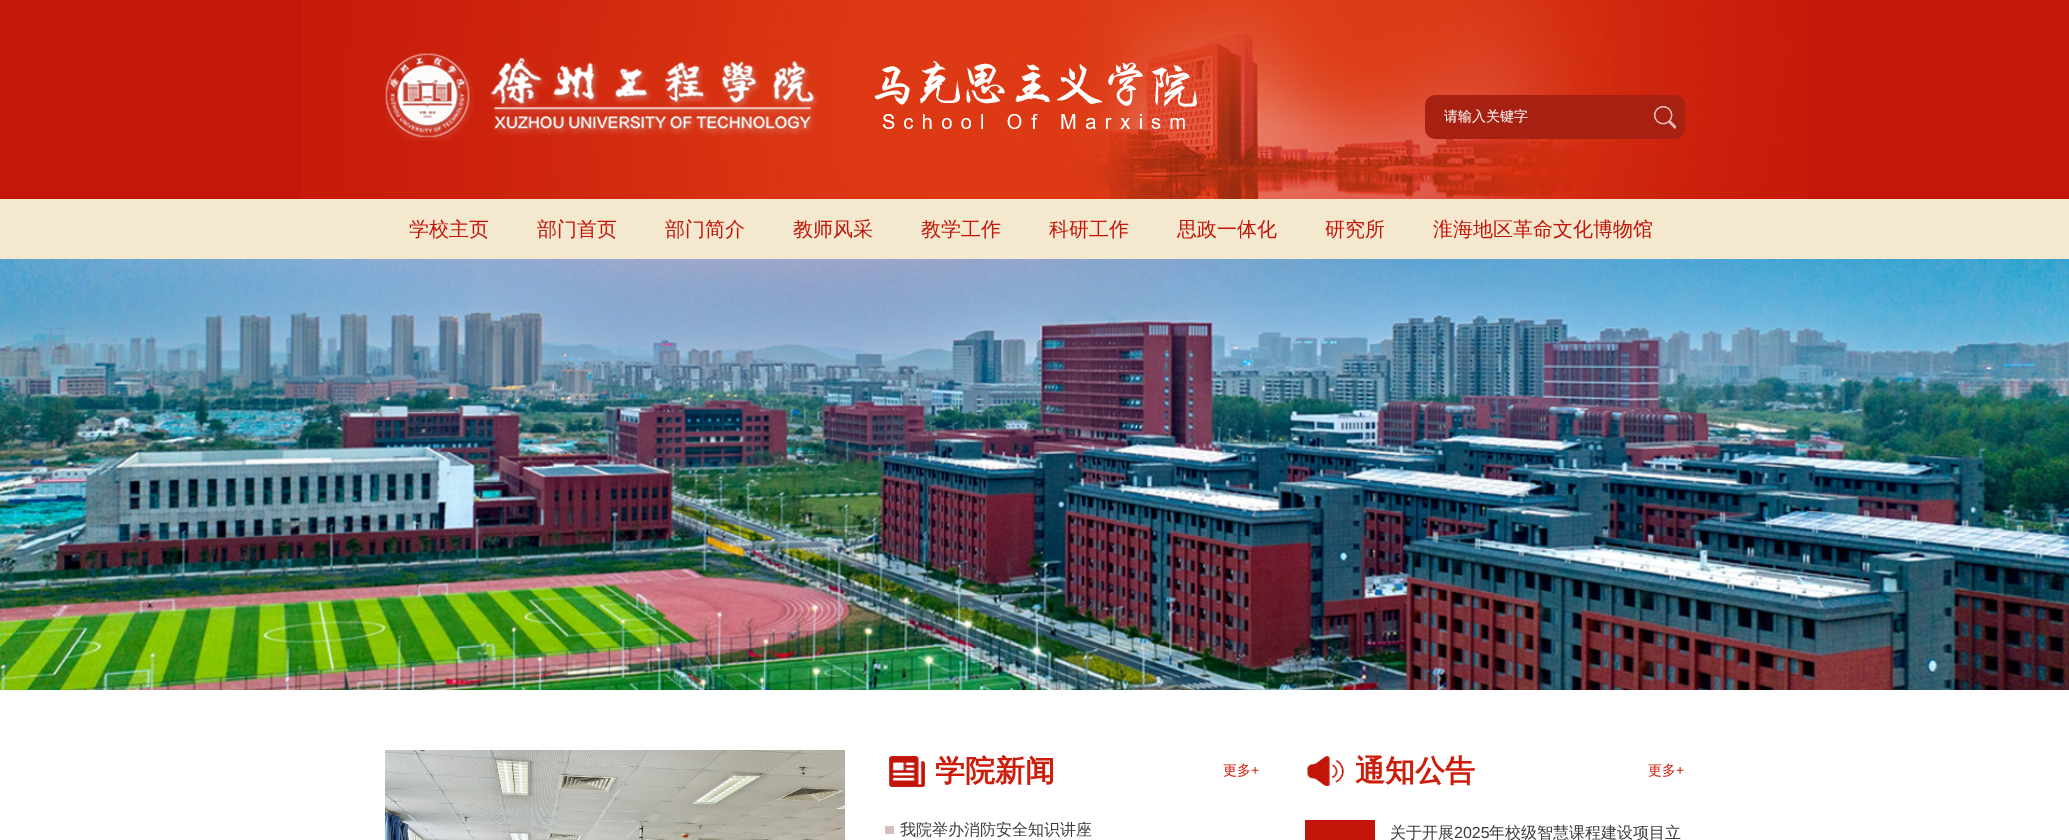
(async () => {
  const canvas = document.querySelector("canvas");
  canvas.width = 2069;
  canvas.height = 840;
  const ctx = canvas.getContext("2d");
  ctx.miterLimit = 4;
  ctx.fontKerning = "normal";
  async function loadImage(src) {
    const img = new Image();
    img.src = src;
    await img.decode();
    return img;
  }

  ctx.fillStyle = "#ffffff";
  ctx.fillRect(0, 0, 2069, 840);
  ctx.fillStyle = "#c41709";
  ctx.fillRect(0, 0, 2069, 199);
  ctx.drawImage(await loadImage("img/1.png"), 302, 0, 1506, 199);
  ctx.drawImage(await loadImage("img/2.png"), 385, 53, 812, 88);
  ctx.fillStyle = "#a72112";
  ctx.beginPath();
  ctx.roundRect(1425, 95, 260, 44, 10);
  ctx.fill();
  ctx.drawImage(await loadImage("img/3.png"), 1654, 106, 22, 23);
  ctx.fillStyle = "#f4e8ce";
  ctx.fillRect(0, 199, 2069, 60);
  ctx.drawImage(await loadImage("img/4.png"), 0, 259, 2069, 431);
  ctx.drawImage(await loadImage("img/5.png"), 385, 750, 460, 90);
  ctx.drawImage(await loadImage("img/6.png"), 889, 756, 36, 31);
  ctx.fillStyle = "#d5bdbb";
  ctx.fillRect(885, 826, 9, 8);
  ctx.drawImage(await loadImage("img/7.png"), 1307, 756, 37, 30);
  ctx.fillStyle = "#c21408";
  ctx.fillRect(1305, 820, 70, 20);
  ctx.font = "500 14px WenQuanYi Zen Hei";
  ctx.fillStyle = "#ffffff";
  ctx.fillText("请输入关键字", 1444, 121);
  ctx.font = "500 20px WenQuanYi Zen Hei";
  ctx.fillStyle = "#c21408";
  for (const [text, x, y] of [
    ["学校主页", 409, 236],
    ["部门首页", 537, 236],
    ["部门简介", 665, 236],
    ["教师风采", 793, 236],
    ["教学工作", 921, 236],
    ["科研工作", 1049, 236],
    ["思政一体化", 1177, 236],
    ["研究所", 1325, 236],
    ["淮海地区革命文化博物馆", 1433, 236],
  ]) {
    ctx.fillText(text, x, y);
  }
  ctx.font = "bold 30px WenQuanYi Zen Hei";
  ctx.fillStyle = "#cd1c0a";
  ctx.fillText("学院新闻", 935, 781);
  ctx.font = "500 14px WenQuanYi Zen Hei";
  ctx.fillText("更多", 1223, 775);
  ctx.font = "14px Liberation Sans";
  ctx.fillText("+", 1251, 775);
  ctx.font = "500 16px WenQuanYi Zen Hei";
  ctx.fillStyle = "#3b3b3b";
  ctx.fillText("我院举办消防安全知识讲座", 900, 835);
  ctx.font = "bold 30px WenQuanYi Zen Hei";
  ctx.fillStyle = "#cd1c0a";
  ctx.fillText("通知公告", 1355, 781);
  ctx.font = "500 14px WenQuanYi Zen Hei";
  ctx.fillText("更多", 1648, 775);
  ctx.font = "14px Liberation Sans";
  ctx.fillText("+", 1676, 775);
  ctx.font = "500 16px WenQuanYi Zen Hei";
  ctx.fillStyle = "#3b3b3b";
  ctx.fillText("关于开展", 1390, 838);
  ctx.font = "16px Liberation Sans";
  ctx.fillText("2025", 1454, 838);
  ctx.font = "500 16px WenQuanYi Zen Hei";
  ctx.fillText("年校级智慧课程建设项目立", 1489, 838);
})();
